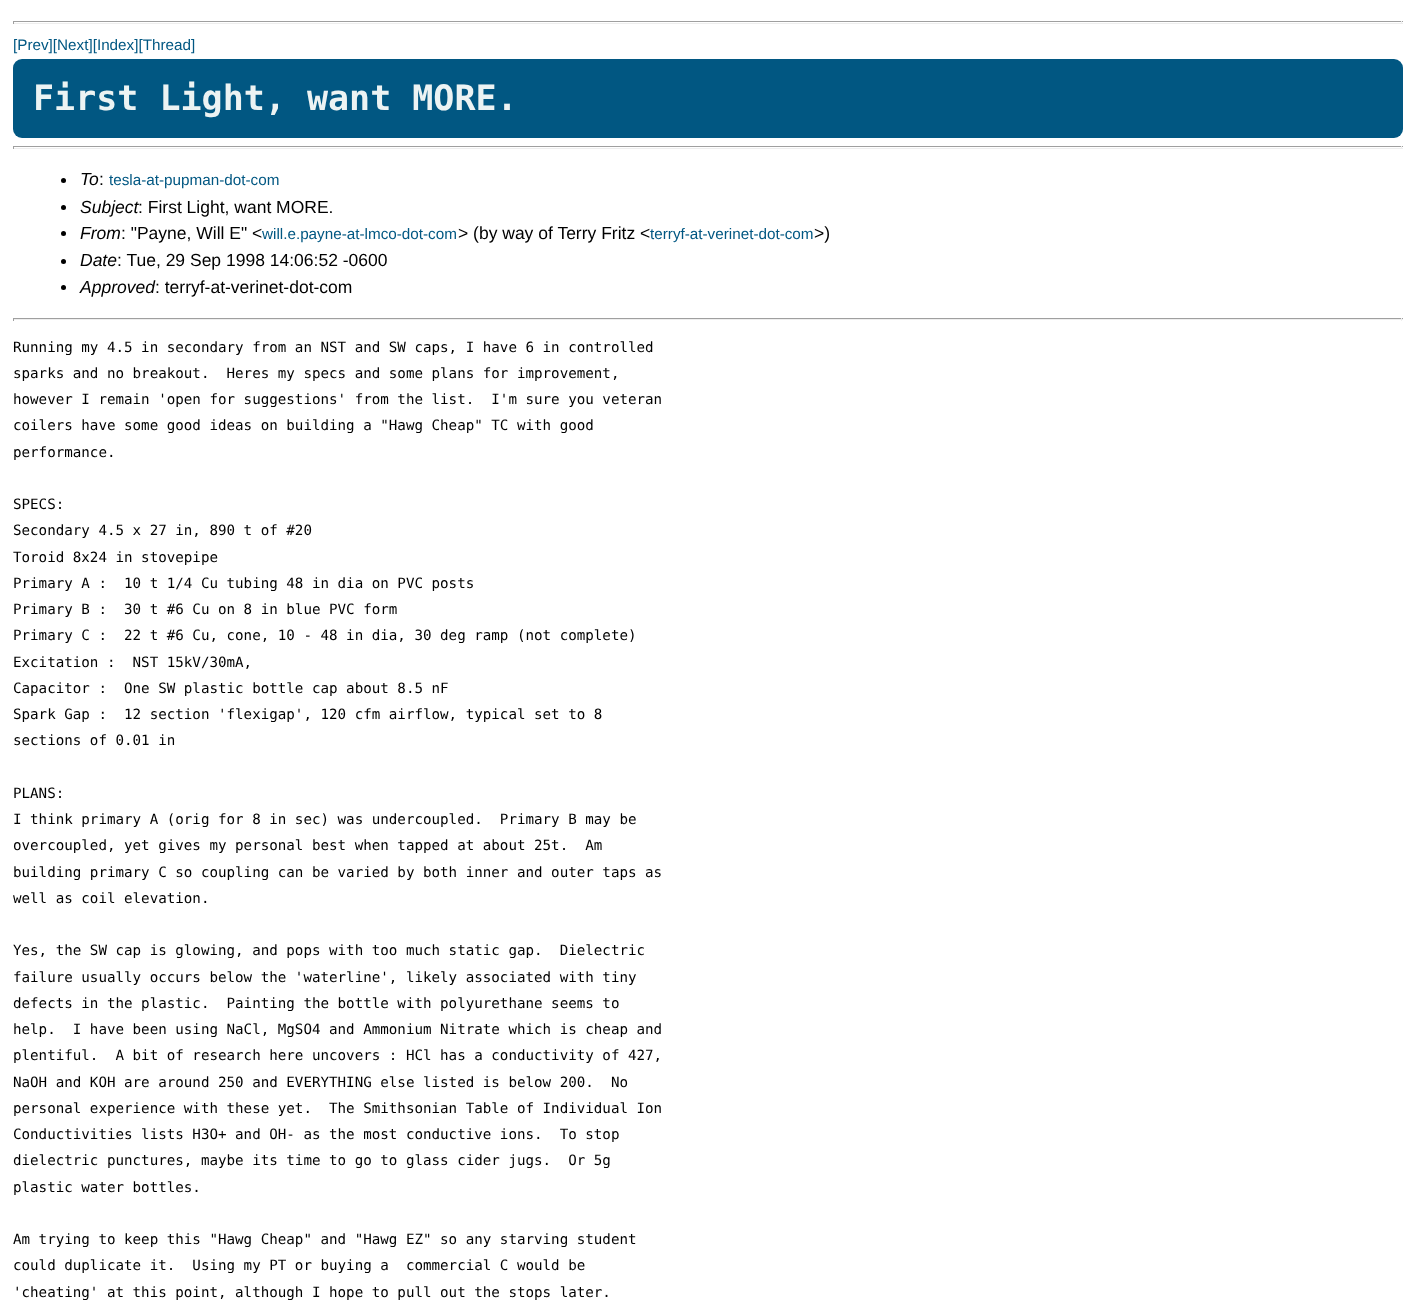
(async () => {
  const canvas = document.querySelector("canvas");
  canvas.width = 1414;
  canvas.height = 1312;
  const ctx = canvas.getContext("2d");
  ctx.miterLimit = 4;
  ctx.fontKerning = "normal";

  ctx.fillStyle = "#ffffff";
  ctx.fillRect(0, 0, 1414, 1312);
  for (const [x, y, w, h, color] of [
    [13, 21, 1390, 1, "#9f9f9f"],
    [1401, 21, 1, 3, "#eeeeee"],
    [13, 23, 1390, 1, "#eeeeee"],
    [13, 21, 1, 3, "#9f9f9f"],
  ]) {
    ctx.fillStyle = color;
    ctx.fillRect(x, y, w, h);
  }
  ctx.fillStyle = "#015782";
  ctx.beginPath();
  ctx.roundRect(13, 59, 1390, 79, 9);
  ctx.fill();
  for (const [x, y, w, h, color] of [
    [13, 146, 1390, 1, "#9f9f9f"],
    [1401, 146, 1, 3, "#eeeeee"],
    [13, 148, 1390, 1, "#eeeeee"],
    [13, 146, 1, 3, "#9f9f9f"],
  ]) {
    ctx.fillStyle = color;
    ctx.fillRect(x, y, w, h);
  }
  ctx.fillStyle = "#000000";
  ctx.beginPath();
  ctx.arc(63.5, 180.5, 2.5, 0, Math.PI * 2);
  ctx.fill();
  ctx.beginPath();
  ctx.arc(63.5, 207.5, 2.5, 0, Math.PI * 2);
  ctx.fill();
  ctx.beginPath();
  ctx.arc(63.5, 233.5, 2.5, 0, Math.PI * 2);
  ctx.fill();
  ctx.beginPath();
  ctx.arc(63.5, 261.5, 2.5, 0, Math.PI * 2);
  ctx.fill();
  ctx.beginPath();
  ctx.arc(63.5, 287.5, 2.5, 0, Math.PI * 2);
  ctx.fill();
  for (const [x, y, w, h, color] of [
    [13, 318, 1390, 1, "#9f9f9f"],
    [1401, 318, 1, 3, "#eeeeee"],
    [13, 319, 1390, 1, "#eeeeee"],
    [13, 318, 1, 3, "#9f9f9f"],
  ]) {
    ctx.fillStyle = color;
    ctx.fillRect(x, y, w, h);
  }
  ctx.font = "15.25px Liberation Sans";
  ctx.fillStyle = "#015782";
  ctx.fillText("[Prev][Next][Index][Thread]", 13, 50);
  ctx.font = "bold 35px DejaVu Sans Mono";
  ctx.fillStyle = "#ecf3f3";
  ctx.fillText("First Light, want MORE.", 33, 110);
  ctx.font = "italic 17.5px Liberation Sans";
  ctx.fillStyle = "#000000";
  ctx.fillText("To", 80, 185);
  ctx.font = "17.5px Liberation Sans";
  ctx.fillText(":", 99, 185);
  ctx.font = "15.25px Liberation Sans";
  ctx.fillStyle = "#015782";
  ctx.fillText("tesla-at-pupman-dot-com", 109, 185);
  ctx.font = "italic 17.5px Liberation Sans";
  ctx.fillStyle = "#000000";
  ctx.fillText("Subject", 80, 213);
  ctx.font = "17.5px Liberation Sans";
  ctx.fillText(": First Light, want MORE.", 138, 213);
  ctx.font = "italic 17.5px Liberation Sans";
  ctx.fillText("From", 80, 239);
  ctx.font = "17.5px Liberation Sans";
  ctx.fillText(": \"Payne, Will E\" <", 121, 239);
  ctx.font = "15.25px Liberation Sans";
  ctx.fillStyle = "#015782";
  ctx.fillText("will.e.payne-at-lmco-dot-com", 262, 239);
  ctx.font = "17.5px Liberation Sans";
  ctx.fillStyle = "#000000";
  ctx.fillText("> (by way of Terry Fritz <", 458, 239);
  ctx.font = "15.25px Liberation Sans";
  ctx.fillStyle = "#015782";
  ctx.fillText("terryf-at-verinet-dot-com", 650, 239);
  ctx.font = "17.5px Liberation Sans";
  ctx.fillStyle = "#000000";
  ctx.fillText(">)", 814, 239);
  ctx.font = "italic 17.5px Liberation Sans";
  ctx.fillText("Date", 80, 266);
  ctx.font = "17.5px Liberation Sans";
  ctx.fillText(": Tue, 29 Sep 1998 14:06:52 -0600", 117, 266);
  ctx.font = "italic 17.5px Liberation Sans";
  ctx.fillText("Approved", 80, 293);
  ctx.font = "17.5px Liberation Sans";
  ctx.fillText(": terryf-at-verinet-dot-com", 155, 293);
  ctx.font = "14.2px DejaVu Sans Mono";
  for (const [text, x, y] of [
    ["Running my 4.5 in secondary from an NST and SW caps, I have 6 in controlled", 13, 352],
    ["sparks and no breakout.  Heres my specs and some plans for improvement,", 13, 378],
    ["however I remain 'open for suggestions' from the list.  I'm sure you veteran", 13, 404],
    ["coilers have some good ideas on building a \"Hawg Cheap\" TC with good", 13, 430],
    ["performance.", 13, 457],
    ["SPECS:", 13, 509],
    ["Secondary 4.5 x 27 in, 890 t of #20", 13, 535],
    ["Toroid 8x24 in stovepipe", 13, 562],
    ["Primary A :  10 t 1/4 Cu tubing 48 in dia on PVC posts", 13, 588],
    ["Primary B :  30 t #6 Cu on 8 in blue PVC form", 13, 614],
    ["Primary C :  22 t #6 Cu, cone, 10 - 48 in dia, 30 deg ramp (not complete)", 13, 640],
    ["Excitation :  NST 15kV/30mA,", 13, 667],
    ["Capacitor :  One SW plastic bottle cap about 8.5 nF", 13, 693],
    ["Spark Gap :  12 section 'flexigap', 120 cfm airflow, typical set to 8", 13, 719],
    ["sections of 0.01 in", 13, 745],
    ["PLANS:", 13, 798],
    ["I think primary A (orig for 8 in sec) was undercoupled.  Primary B may be", 13, 824],
    ["overcoupled, yet gives my personal best when tapped at about 25t.  Am", 13, 850],
    ["building primary C so coupling can be varied by both inner and outer taps as", 13, 877],
    ["well as coil elevation.", 13, 903],
    ["Yes, the SW cap is glowing, and pops with too much static gap.  Dielectric", 13, 955],
    ["failure usually occurs below the 'waterline', likely associated with tiny", 13, 982],
    ["defects in the plastic.  Painting the bottle with polyurethane seems to", 13, 1008],
    ["help.  I have been using NaCl, MgSO4 and Ammonium Nitrate which is cheap and", 13, 1034],
    ["plentiful.  A bit of research here uncovers : HCl has a conductivity of 427,", 13, 1060],
    ["NaOH and KOH are around 250 and EVERYTHING else listed is below 200.  No", 13, 1087],
    ["personal experience with these yet.  The Smithsonian Table of Individual Ion", 13, 1113],
    ["Conductivities lists H3O+ and OH- as the most conductive ions.  To stop", 13, 1139],
    ["dielectric punctures, maybe its time to go to glass cider jugs.  Or 5g", 13, 1165],
    ["plastic water bottles.", 13, 1192],
    ["Am trying to keep this \"Hawg Cheap\" and \"Hawg EZ\" so any starving student", 13, 1244],
    ["could duplicate it.  Using my PT or buying a  commercial C would be", 13, 1270],
    ["'cheating' at this point, although I hope to pull out the stops later.", 13, 1297],
  ]) {
    ctx.fillText(text, x, y);
  }
})();
